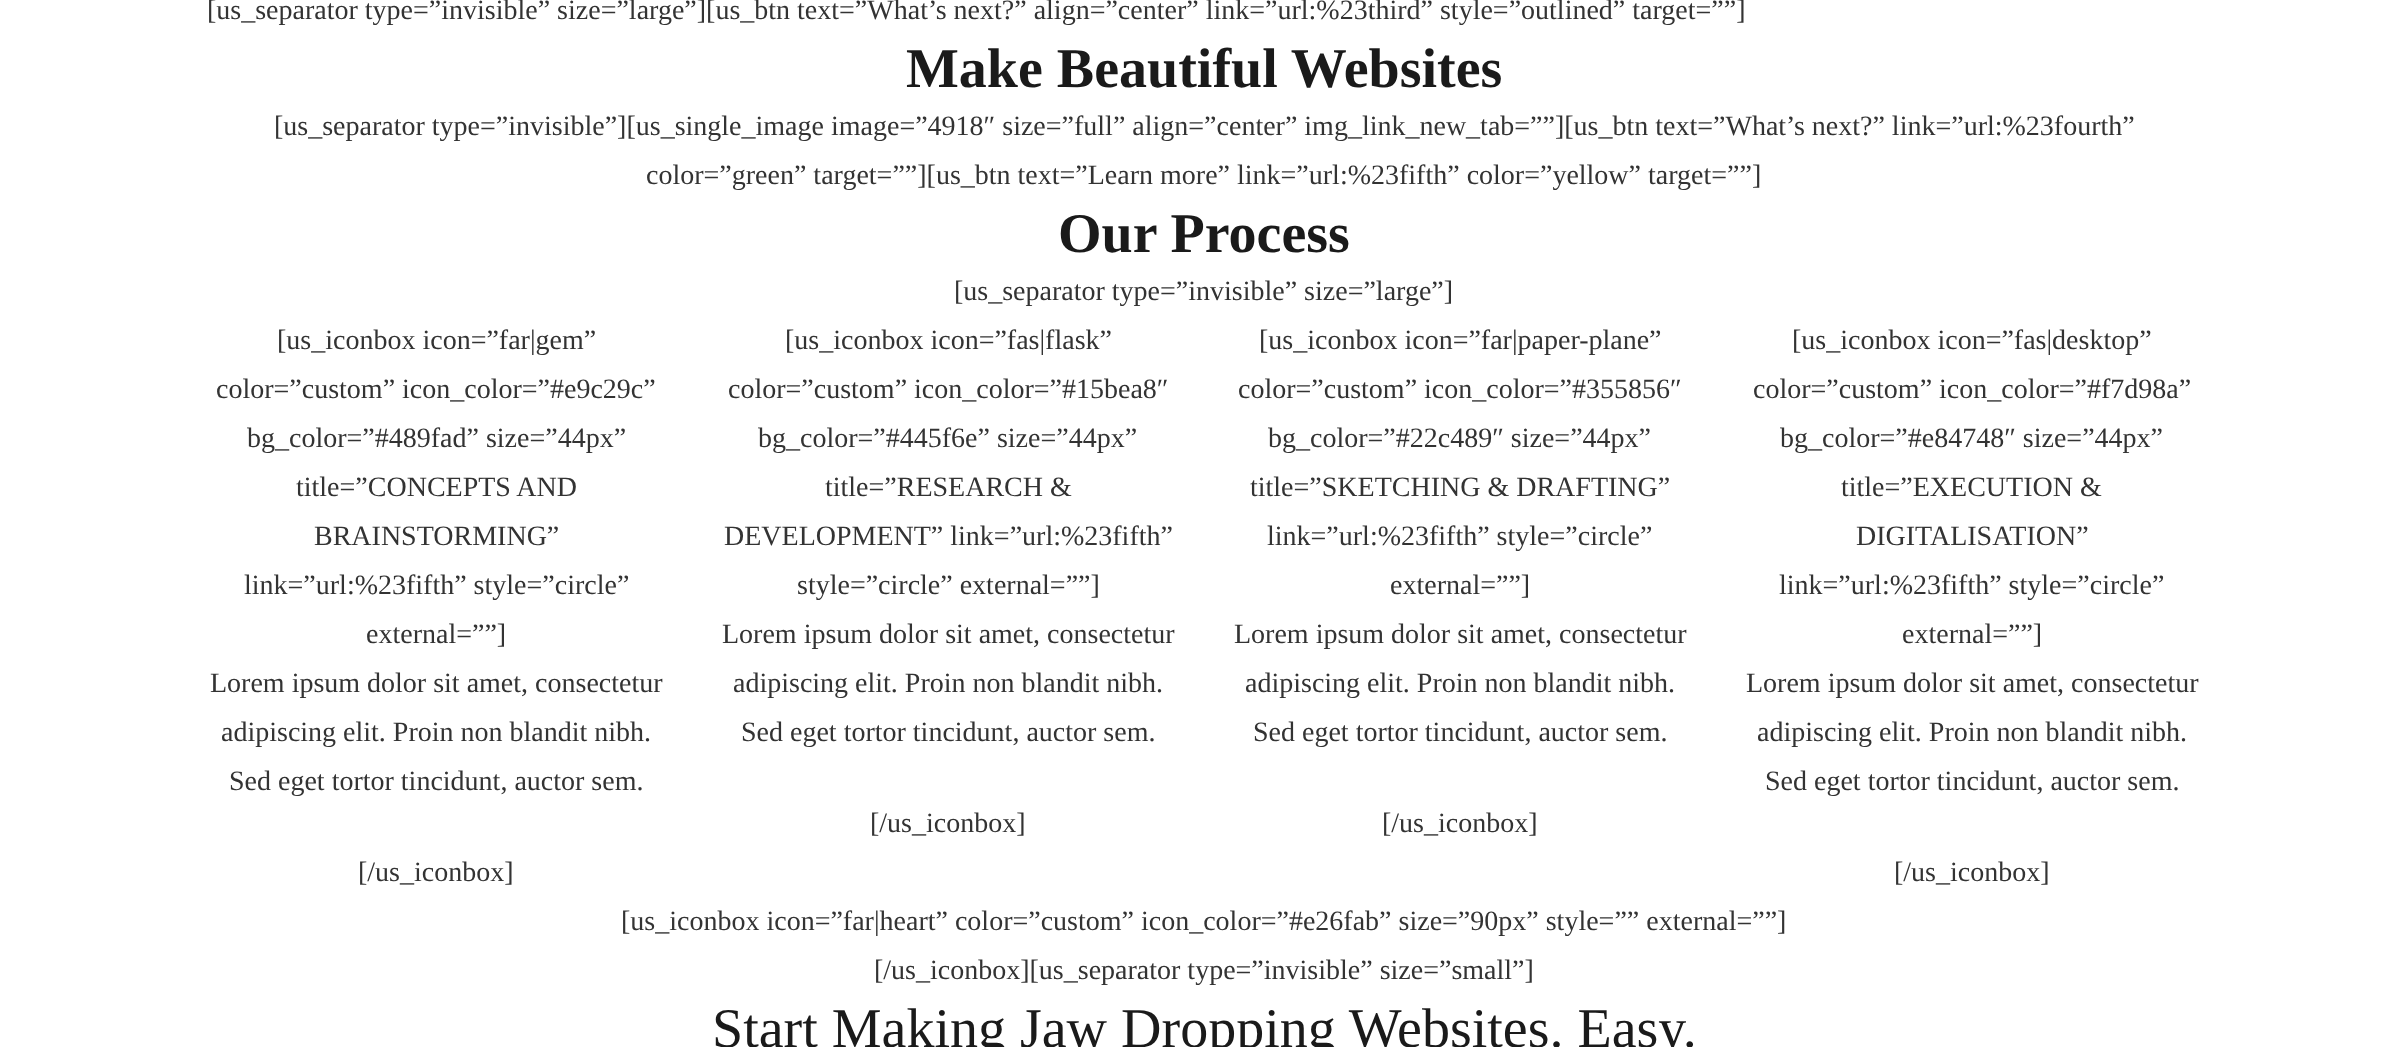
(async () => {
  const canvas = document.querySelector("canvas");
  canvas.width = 2407;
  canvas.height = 1047;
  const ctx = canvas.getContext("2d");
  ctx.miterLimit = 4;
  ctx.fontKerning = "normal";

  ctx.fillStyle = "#ffffff";
  ctx.fillRect(0, 0, 2407, 1047);
  ctx.font = "28px Liberation Serif";
  ctx.fillStyle = "#333333";
  ctx.fillText("[us_separator type=”invisible” size=”large”][us_btn text=”What’s next?” align=”center” link=”url:%23third” style=”outlined” target=””]", 207, 19);
  ctx.font = "bold 56px Liberation Serif";
  ctx.fillStyle = "#1a1a1a";
  ctx.fillText("Make Beautiful Websites", 906, 87);
  ctx.font = "28px Liberation Serif";
  ctx.fillStyle = "#333333";
  ctx.fillText("[us_separator type=”invisible”][us_single_image image=”4918″ size=”full” align=”center” img_link_new_tab=””][us_btn text=”What’s next?” link=”url:%23fourth”", 274, 135);
  ctx.fillText("color=”green” target=””][us_btn text=”Learn more” link=”url:%23fifth” color=”yellow” target=””]", 646, 184);
  ctx.font = "bold 56px Liberation Serif";
  ctx.fillStyle = "#1a1a1a";
  ctx.fillText("Our Process", 1058, 252);
  ctx.font = "28px Liberation Serif";
  ctx.fillStyle = "#333333";
  for (const [text, x, y] of [
    ["[us_separator type=”invisible” size=”large”]", 954, 300],
    ["[us_iconbox icon=”far|gem”", 277, 349],
    ["color=”custom” icon_color=”#e9c29c”", 216, 398],
    ["bg_color=”#489fad” size=”44px”", 247, 447],
    ["title=”CONCEPTS AND", 296, 496],
    ["BRAINSTORMING”", 314, 545],
    ["link=”url:%23fifth” style=”circle”", 244, 594],
    ["external=””]", 366, 643],
    ["Lorem ipsum dolor sit amet, consectetur", 210, 692],
    ["adipiscing elit. Proin non blandit nibh.", 221, 741],
    ["Sed eget tortor tincidunt, auctor sem.", 229, 790],
    ["[/us_iconbox]", 358, 881],
    ["[us_iconbox icon=”fas|flask”", 785, 349],
    ["color=”custom” icon_color=”#15bea8″", 728, 398],
    ["bg_color=”#445f6e” size=”44px”", 758, 447],
    ["title=”RESEARCH &", 825, 496],
    ["DEVELOPMENT” link=”url:%23fifth”", 724, 545],
    ["style=”circle” external=””]", 797, 594],
    ["Lorem ipsum dolor sit amet, consectetur", 722, 643],
    ["adipiscing elit. Proin non blandit nibh.", 733, 692],
    ["Sed eget tortor tincidunt, auctor sem.", 741, 741],
    ["[/us_iconbox]", 870, 832],
    ["[us_iconbox icon=”far|paper-plane”", 1259, 349],
    ["color=”custom” icon_color=”#355856″", 1238, 398],
    ["bg_color=”#22c489″ size=”44px”", 1268, 447],
    ["title=”SKETCHING & DRAFTING”", 1250, 496],
    ["link=”url:%23fifth” style=”circle”", 1267, 545],
    ["external=””]", 1390, 594],
    ["Lorem ipsum dolor sit amet, consectetur", 1234, 643],
    ["adipiscing elit. Proin non blandit nibh.", 1245, 692],
    ["Sed eget tortor tincidunt, auctor sem.", 1253, 741],
    ["[/us_iconbox]", 1382, 832],
    ["[us_iconbox icon=”fas|desktop”", 1792, 349],
    ["color=”custom” icon_color=”#f7d98a”", 1753, 398],
    ["bg_color=”#e84748″ size=”44px”", 1780, 447],
    ["title=”EXECUTION &", 1841, 496],
    ["DIGITALISATION”", 1856, 545],
    ["link=”url:%23fifth” style=”circle”", 1779, 594],
    ["external=””]", 1902, 643],
    ["Lorem ipsum dolor sit amet, consectetur", 1746, 692],
    ["adipiscing elit. Proin non blandit nibh.", 1757, 741],
    ["Sed eget tortor tincidunt, auctor sem.", 1765, 790],
    ["[/us_iconbox]", 1894, 881],
    ["[us_iconbox icon=”far|heart” color=”custom” icon_color=”#e26fab” size=”90px” style=”” external=””]", 621, 930],
    ["[/us_iconbox][us_separator type=”invisible” size=”small”]", 874, 979],
  ]) {
    ctx.fillText(text, x, y);
  }
  ctx.font = "56px Liberation Serif";
  ctx.fillStyle = "#1a1a1a";
  ctx.fillText("Start Making Jaw Dropping Websites. Easy.", 712, 1047);
})();
